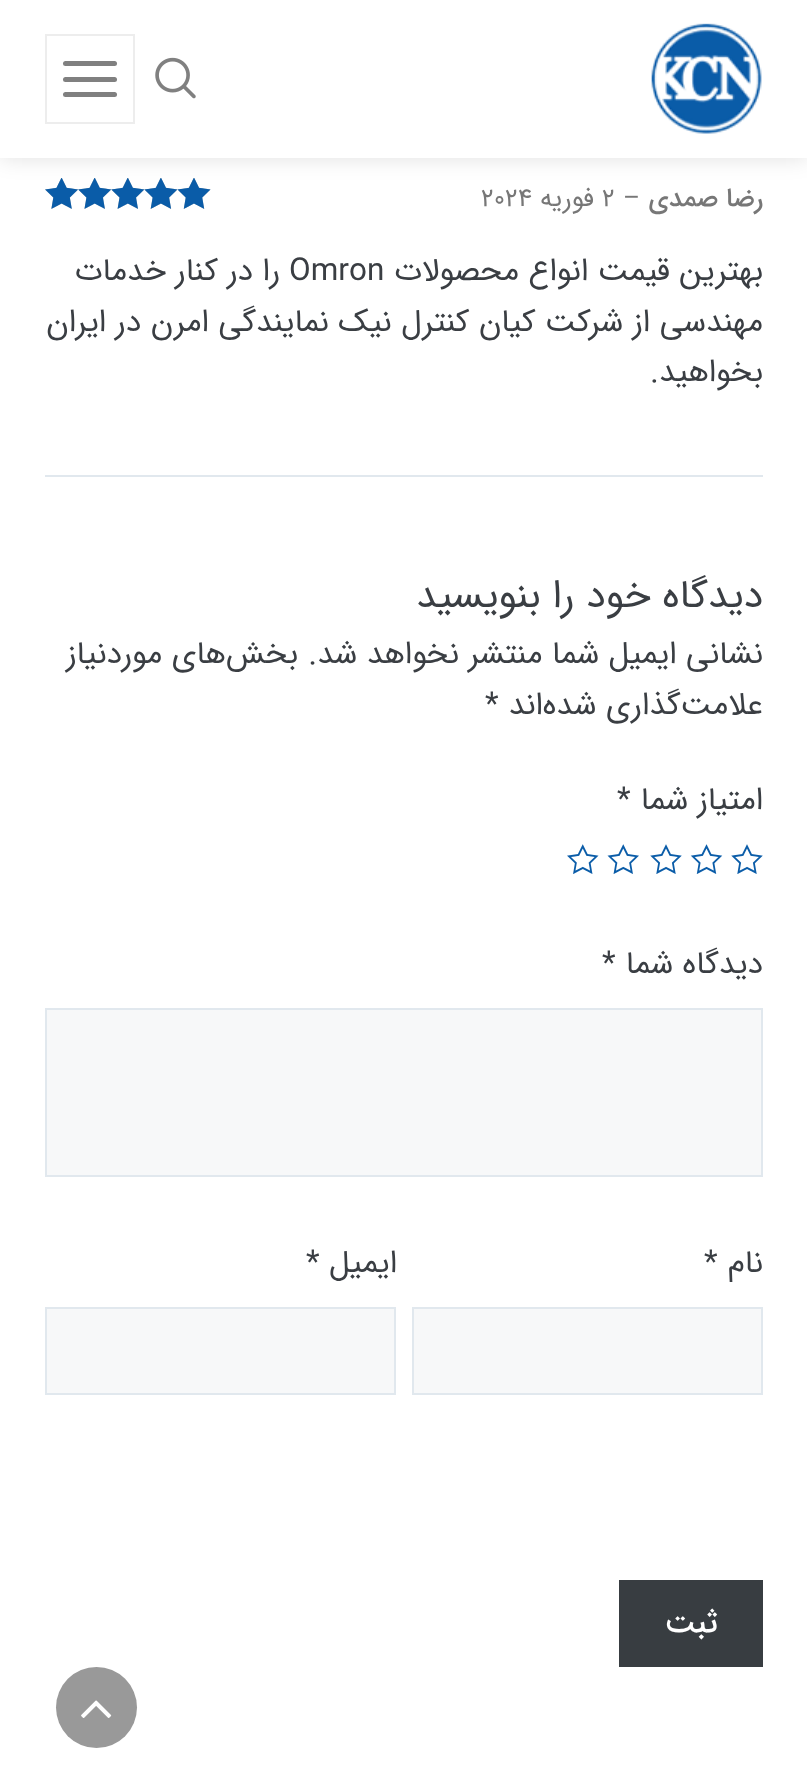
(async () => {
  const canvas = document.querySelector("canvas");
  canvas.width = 807;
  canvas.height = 1770;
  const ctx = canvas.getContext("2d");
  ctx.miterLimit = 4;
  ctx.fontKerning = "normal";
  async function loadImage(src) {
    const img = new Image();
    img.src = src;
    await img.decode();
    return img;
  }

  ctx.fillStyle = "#ffffff";
  ctx.fillRect(0, 0, 807, 1770);
  ctx.drawImage(await loadImage("img/3.png"), 45, 178, 166, 31);
  ctx.drawImage(await loadImage("img/4.png"), 45, 178, 166, 31);
  ctx.fillStyle = "rgba(0, 0, 0, 0.12)";
  ctx.filter = "blur(11px)";
  ctx.beginPath();
  ctx.rect(0, 0, 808, 158);
  ctx.fill();
  ctx.filter = "none";
  ctx.fillStyle = "#ffffff";
  ctx.fillRect(0, 0, 807, 158);
  ctx.drawImage(await loadImage("img/1.png"), 651, 23, 111, 111);
  ctx.drawImage(await loadImage("img/2.png"), 155, 57, 41, 42);
  ctx.strokeStyle = "#ededed";
  ctx.lineWidth = 2;
  ctx.strokeRect(46, 35, 88, 88);
  ctx.fillStyle = "#808080";
  ctx.beginPath();
  ctx.roundRect(63, 61, 54, 5, 2.5);
  ctx.fill();
  ctx.beginPath();
  ctx.roundRect(63, 77, 54, 5, 2.5);
  ctx.fill();
  ctx.beginPath();
  ctx.roundRect(63, 92, 54, 5, 2.5);
  ctx.fill();
  ctx.fillStyle = "#e1e8ee";
  ctx.fillRect(45, 475, 718, 2);
  ctx.drawImage(await loadImage("img/5.png"), 731, 844, 32, 30);
  ctx.drawImage(await loadImage("img/6.png"), 690, 844, 33, 30);
  ctx.drawImage(await loadImage("img/5.png"), 650, 844, 32, 30);
  ctx.drawImage(await loadImage("img/7.png"), 607, 844, 32, 30);
  ctx.drawImage(await loadImage("img/8.png"), 567, 844, 32, 30);
  ctx.fillStyle = "#f7f8f9";
  ctx.beginPath();
  ctx.rect(46, 1009, 716, 167);
  ctx.fill();
  ctx.strokeStyle = "#e1e8ee";
  ctx.stroke();
  ctx.beginPath();
  ctx.rect(413, 1308, 349, 86);
  ctx.fill();
  ctx.stroke();
  ctx.beginPath();
  ctx.rect(46, 1308, 349, 86);
  ctx.fill();
  ctx.stroke();
  ctx.fillStyle = "#383d41";
  ctx.fillRect(619, 1580, 144, 87);
  ctx.fillStyle = "#999999";
  ctx.beginPath();
  ctx.arc(96.5, 1707.5, 40.5, 0, Math.PI * 2);
  ctx.fill();
  ctx.drawImage(await loadImage("img/9.png"), 81, 1700, 31, 18);
  ctx.direction = "rtl";
  ctx.font = "500 26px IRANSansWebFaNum";
  ctx.fillStyle = "#777777";
  ctx.fillText("رضا صمدی", 763, 206);
  ctx.direction = "ltr";
  ctx.font = "26px IRANSansWebFaNum";
  ctx.fillText("–", 623, 206);
  ctx.fillText("2", 602, 206);
  ctx.direction = "rtl";
  ctx.fillText("فوریه", 594, 206);
  ctx.direction = "ltr";
  ctx.fillText("2024", 481, 206);
  ctx.direction = "rtl";
  ctx.font = "31.5px IRANSansWebFaNum";
  ctx.fillStyle = "#3a3e43";
  ctx.fillText("بهترین قیمت انواع محصولات", 763, 280);
  ctx.direction = "ltr";
  ctx.fillText("Omron", 289, 280);
  ctx.direction = "rtl";
  for (const [text, x, y] of [
    ["را در کنار خدمات", 280, 280],
    ["مهندسی از شرکت کیان کنترل نیک نمایندگی امرن در ایران", 763, 331],
    ["بخواهید.", 763, 381],
  ]) {
    ctx.fillText(text, x, y);
  }
  ctx.font = "39.4px IRANSansWebFaNum";
  ctx.fillText("دیدگاه خود را بنویسید", 763, 607);
  ctx.font = "31.5px IRANSansWebFaNum";
  for (const [text, x, y] of [
    ["نشانی ایمیل شما منتشر نخواهد شد.", 763, 663],
    ["بخش‌های موردنیاز", 298, 663],
    ["علامت‌گذاری شده‌اند", 763, 714],
  ]) {
    ctx.fillText(text, x, y);
  }
  ctx.direction = "ltr";
  ctx.fillText("*", 485, 714);
  ctx.direction = "rtl";
  ctx.fillText("امتیاز شما", 763, 809);
  ctx.direction = "ltr";
  ctx.fillText("*", 617, 809);
  ctx.direction = "rtl";
  ctx.fillText("دیدگاه شما", 763, 973);
  ctx.direction = "ltr";
  ctx.fillText("*", 602, 973);
  ctx.direction = "rtl";
  ctx.fillText("نام", 763, 1272);
  ctx.direction = "ltr";
  ctx.fillText("*", 704, 1272);
  ctx.direction = "rtl";
  ctx.fillText("ایمیل", 397, 1272);
  ctx.direction = "ltr";
  ctx.fillText("*", 306, 1272);
  ctx.direction = "rtl";
  ctx.font = "500 31.5px IRANSansWebFaNum";
  ctx.fillStyle = "#ffffff";
  ctx.fillText("ثبت", 718, 1632);
})();
